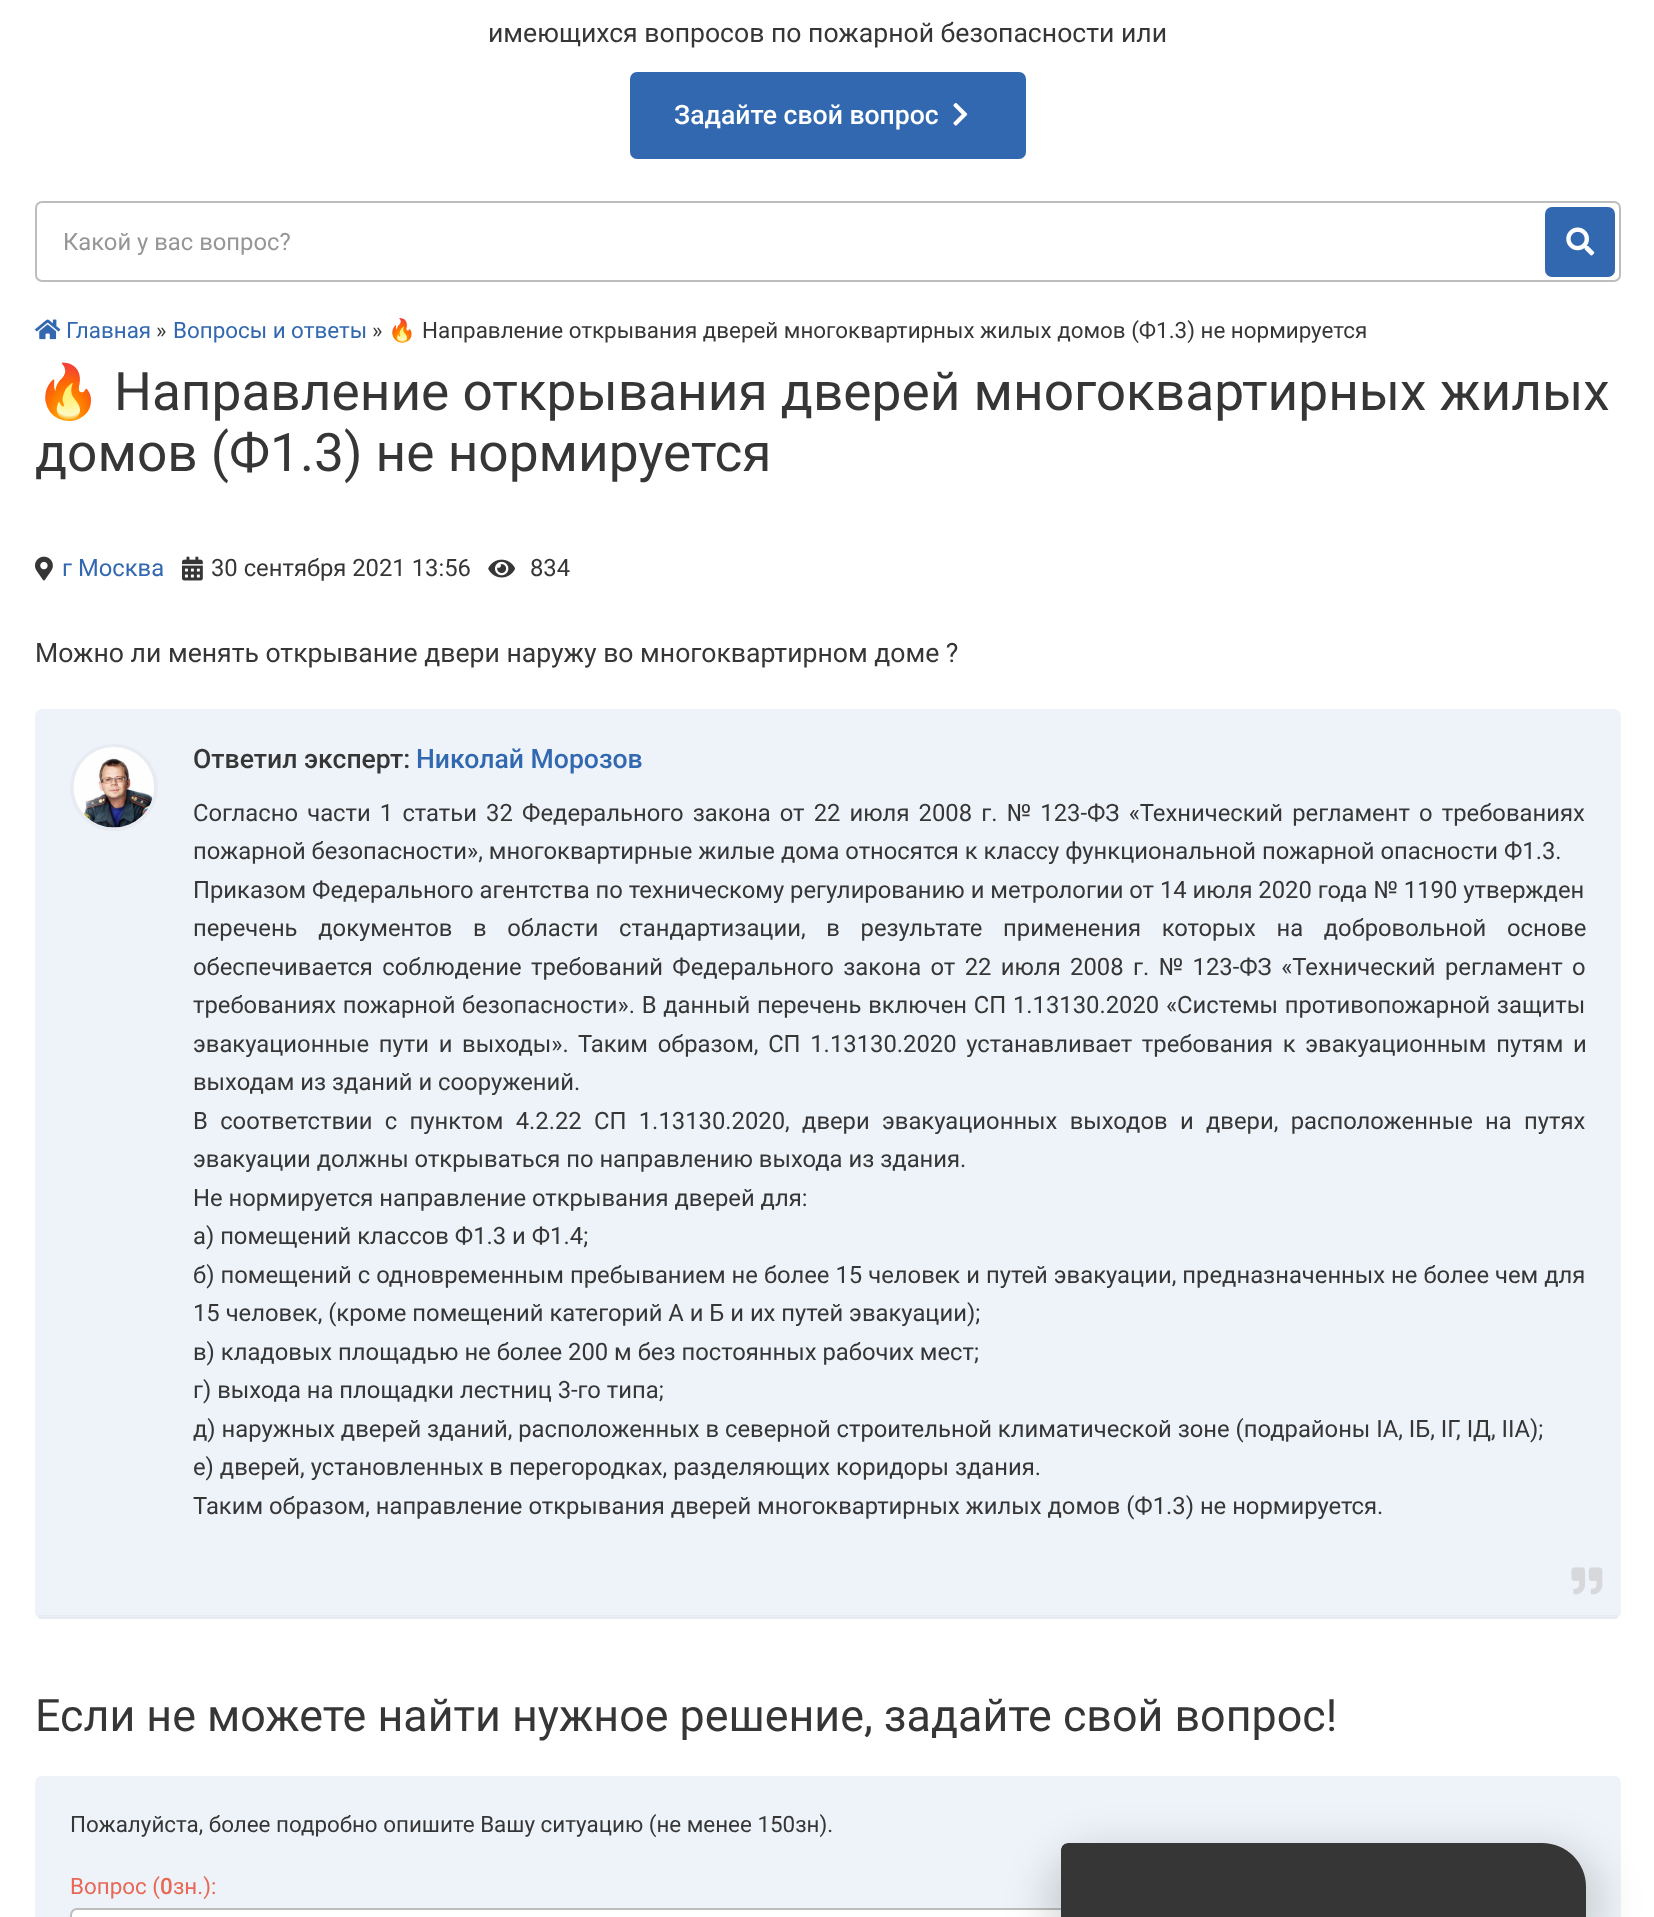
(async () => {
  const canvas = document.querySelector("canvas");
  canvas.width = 1654;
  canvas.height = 1917;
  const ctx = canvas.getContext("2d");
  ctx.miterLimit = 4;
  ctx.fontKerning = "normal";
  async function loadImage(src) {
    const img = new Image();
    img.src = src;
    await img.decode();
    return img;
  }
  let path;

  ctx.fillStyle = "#ffffff";
  ctx.fillRect(0, 0, 1654, 1917);
  ctx.fillStyle = "#3268b0";
  ctx.beginPath();
  ctx.roundRect(630, 72, 396, 87, 7);
  ctx.fill();
  ctx.drawImage(await loadImage("img/1.png"), 953, 103, 15, 23);
  ctx.beginPath();
  ctx.roundRect(36, 202, 1584, 79, 6);
  ctx.strokeStyle = "#bdbdbd";
  ctx.lineWidth = 2;
  ctx.stroke();
  ctx.beginPath();
  ctx.roundRect(1545, 207, 70, 70, 7);
  ctx.fill();
  ctx.drawImage(await loadImage("img/2.png"), 1566, 227, 29, 29);
  ctx.drawImage(await loadImage("img/3.png"), 35, 319, 26, 21);
  ctx.drawImage(await loadImage("img/4.png"), 35, 556, 18, 25);
  ctx.drawImage(await loadImage("img/5.png"), 182, 556, 21, 25);
  ctx.drawImage(await loadImage("img/6.png"), 488, 559, 27, 19);
  ctx.fillStyle = "#eef3f9";
  ctx.beginPath();
  ctx.roundRect(35, 709, 1586, 910, 7);
  ctx.fill();
  ctx.fillStyle = "#e8ecf2";
  ctx.fillRect(39, 1615, 1578, 4);
  ctx.beginPath();
  ctx.roundRect(72, 746, 84, 83, 41.5);
  ctx.strokeStyle = "#e8ecf2";
  ctx.lineWidth = 4;
  ctx.stroke();
  ctx.drawImage(await loadImage("img/7.png"), 73, 747, 81, 81);
  ctx.drawImage(await loadImage("img/8.png"), 1571, 1567, 32, 28);
  ctx.fillStyle = "#eef3f9";
  ctx.beginPath();
  ctx.roundRect(35, 1776, 1586, 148, 7);
  ctx.fill();
  ctx.fillStyle = "#ffffff";
  ctx.beginPath();
  ctx.roundRect(71, 1909, 1514, 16, 6);
  ctx.fill();
  ctx.strokeStyle = "#bdbdbd";
  ctx.lineWidth = 2;
  ctx.stroke();
  ctx.fillStyle = "rgba(0, 0, 0, 0.17)";
  ctx.filter = "blur(22px)";
  ctx.beginPath();
  ctx.roundRect(1047, 1850, 553, 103, 58);
  ctx.fill();
  ctx.filter = "none";
  ctx.save();
  path = new Path2D("M1068 1843H1542C1566.5 1843 1586 1862.5 1586 1887V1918H1061V1850C1061 1846 1064 1843 1068 1843Z");
  ctx.clip(path);
  ctx.fillStyle = "#363636";
  path = new Path2D("M1068 1843H1586V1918H1061V1850C1061 1846 1064 1843 1068 1843Z");
  ctx.fill(path);
  ctx.restore();
  ctx.font = "26.6px Roboto";
  ctx.fillStyle = "#363636";
  ctx.fillText("имеющихся вопросов по пожарной безопасности или", 488, 42);
  ctx.font = "500 26.6px Roboto";
  ctx.fillStyle = "#ffffff";
  ctx.fillText("Задайте свой вопрос", 674, 124);
  ctx.font = "23.8px Roboto";
  ctx.fillStyle = "#969696";
  ctx.fillText("Какой у вас вопрос?", 63, 250);
  ctx.font = "22.4px Roboto";
  ctx.fillStyle = "#3268b0";
  ctx.fillText("Главная", 66, 338);
  ctx.fillStyle = "#363636";
  ctx.fillText("»", 156, 338);
  ctx.fillStyle = "#3268b0";
  ctx.fillText("Вопросы и ответы", 173, 338);
  ctx.fillStyle = "#363636";
  ctx.fillText("»", 372, 338);
  ctx.font = "22.4px Noto Color Emoji";
  ctx.fillText("🔥", 388, 338);
  ctx.font = "22.4px Roboto";
  ctx.fillText("Направление открывания дверей многоквартирных жилых домов (Ф1.3) не нормируется", 422, 338);
  ctx.font = "53.2px Noto Color Emoji";
  ctx.fillText("🔥", 35, 410);
  ctx.font = "53.2px Roboto";
  ctx.fillText("Направление открывания дверей многоквартирных жилых", 114, 410);
  ctx.fillText("домов (Ф1.3) не нормируется", 35, 471);
  ctx.font = "23.8px Roboto";
  ctx.fillStyle = "#3268b0";
  ctx.fillText("г Москва", 62, 576);
  ctx.fillStyle = "#363636";
  ctx.fillText("30 сентября 2021 13:56", 211, 576);
  ctx.fillText("834", 530, 576);
  ctx.font = "26.6px Roboto";
  ctx.fillText("Можно ли менять открывание двери наружу во многоквартирном доме ?", 35, 662);
  ctx.font = "500 26.6px Roboto";
  ctx.fillText("Ответил эксперт:", 193, 768);
  ctx.fillStyle = "#3268b0";
  ctx.fillText("Николай Морозов", 416, 768);
  ctx.wordSpacing = "3.25px";
  ctx.font = "23.8px Roboto";
  ctx.fillStyle = "#363636";
  ctx.fillText("Согласно части 1 статьи 32 Федерального закона от 22 июля 2008 г. № 123-ФЗ «Технический регламент о требованиях", 193, 821);
  ctx.wordSpacing = "0px";
  ctx.fillText("пожарной безопасности», многоквартирные жилые дома относятся к классу функциональной пожарной опасности Ф1.3.", 193, 859);
  ctx.fillText("Приказом Федерального агентства по техническому регулированию и метрологии от 14 июля 2020 года № 1190 утвержден", 193, 898);
  ctx.wordSpacing = "14.75px";
  ctx.fillText("перечень документов в области стандартизации, в результате применения которых на добровольной основе", 193, 936);
  ctx.wordSpacing = "3.5px";
  ctx.fillText("обеспечивается соблюдение требований Федерального закона от 22 июля 2008 г. № 123-ФЗ «Технический регламент о", 193, 975);
  ctx.wordSpacing = "0.8px";
  ctx.fillText("требованиях пожарной безопасности». В данный перечень включен СП 1.13130.2020 «Системы противопожарной защиты", 193, 1013);
  ctx.wordSpacing = "3.75px";
  ctx.fillText("эвакуационные пути и выходы». Таким образом, СП 1.13130.2020 устанавливает требования к эвакуационным путям и", 193, 1052);
  ctx.wordSpacing = "0px";
  ctx.fillText("выходам из зданий и сооружений.", 193, 1090);
  ctx.wordSpacing = "6.4px";
  ctx.fillText("В соответствии с пунктом 4.2.22 СП 1.13130.2020, двери эвакуационных выходов и двери, расположенные на путях", 193, 1129);
  ctx.wordSpacing = "0px";
  for (const [text, x, y] of [
    ["эвакуации должны открываться по направлению выхода из здания.", 193, 1167],
    ["Не нормируется направление открывания дверей для:", 193, 1206],
    ["а) помещений классов Ф1.3 и Ф1.4;", 193, 1244],
  ]) {
    ctx.fillText(text, x, y);
  }
  ctx.wordSpacing = "0.1px";
  ctx.fillText("б) помещений с одновременным пребыванием не более 15 человек и путей эвакуации, предназначенных не более чем для", 193, 1283);
  ctx.wordSpacing = "0px";
  for (const [text, x, y] of [
    ["15 человек, (кроме помещений категорий А и Б и их путей эвакуации);", 193, 1321],
    ["в) кладовых площадью не более 200 м без постоянных рабочих мест;", 193, 1360],
    ["г) выхода на площадки лестниц 3-го типа;", 193, 1398],
    ["д) наружных дверей зданий, расположенных в северной строительной климатической зоне (подрайоны IА, IБ, IГ, IД, IIА);", 193, 1437],
    ["е) дверей, установленных в перегородках, разделяющих коридоры здания.", 193, 1475],
    ["Таким образом, направление открывания дверей многоквартирных жилых домов (Ф1.3) не нормируется.", 193, 1514],
  ]) {
    ctx.fillText(text, x, y);
  }
  ctx.font = "44.8px Roboto";
  ctx.fillText("Если не можете найти нужное решение, задайте свой вопрос!", 35, 1731);
  ctx.font = "22.4px Roboto";
  ctx.fillText("Пожалуйста, более подробно опишите Вашу ситуацию (не менее 150зн).", 70, 1832);
  ctx.fillStyle = "#e86856";
  ctx.fillText("Вопрос (", 70, 1894);
  ctx.font = "500 22.4px Roboto";
  ctx.fillText("0", 160, 1894);
  ctx.font = "22.4px Roboto";
  ctx.fillText("зн.):", 173, 1894);
})();
